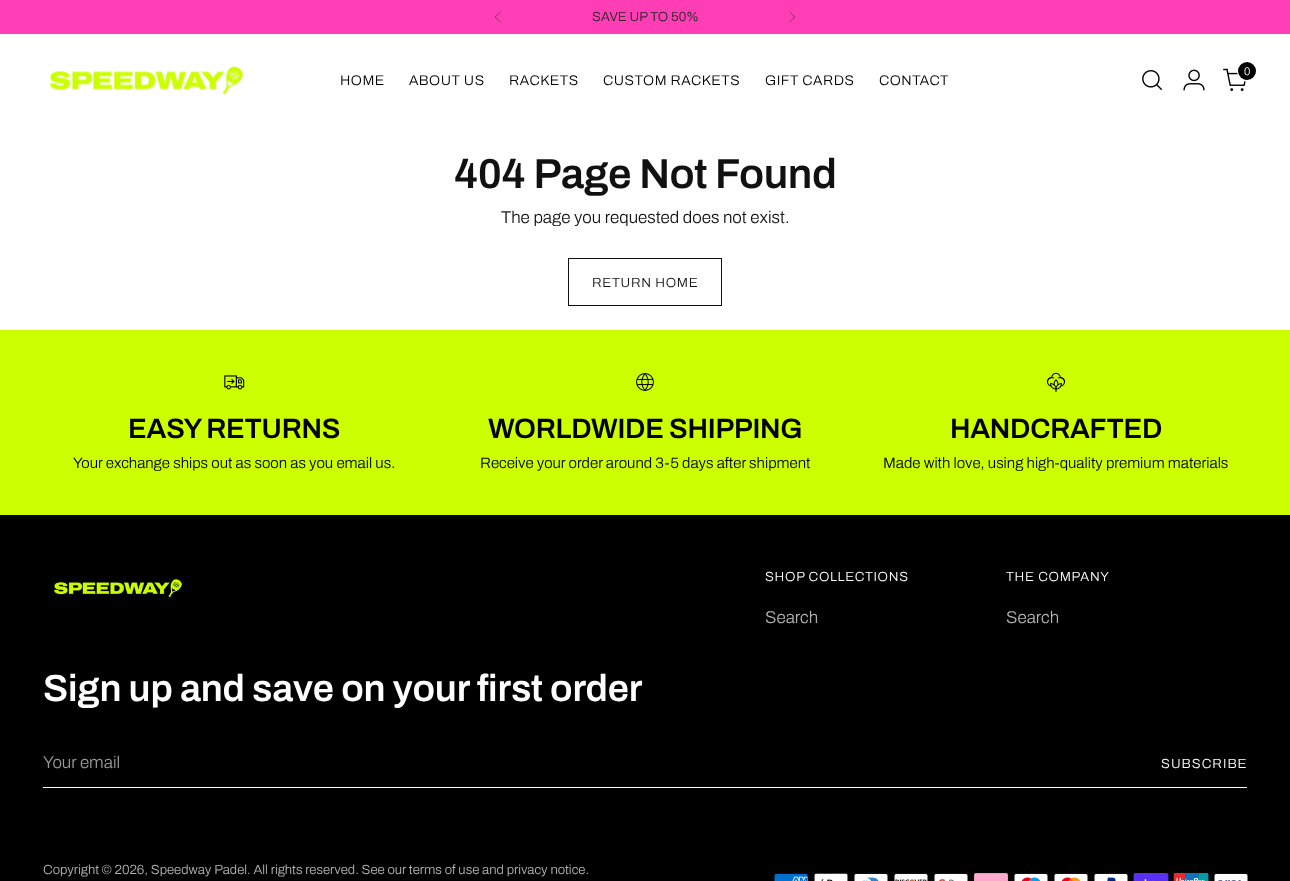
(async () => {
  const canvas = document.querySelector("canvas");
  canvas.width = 1290;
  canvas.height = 881;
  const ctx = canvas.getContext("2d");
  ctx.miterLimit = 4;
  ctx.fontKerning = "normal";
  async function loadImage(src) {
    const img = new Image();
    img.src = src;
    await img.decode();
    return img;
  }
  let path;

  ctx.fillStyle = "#ffffff";
  ctx.fillRect(0, 0, 1290, 881);
  ctx.fillStyle = "#ff3eb5";
  ctx.fillRect(0, 0, 1290, 34);
  path = new Path2D("M500.5 12L495 17L500.5 22");
  ctx.strokeStyle = "#92326e";
  ctx.stroke(path);
  path = new Path2D("M789.5 22L795 17L789.5 12");
  ctx.stroke(path);
  ctx.drawImage(await loadImage("img/1.png"), 50, 66, 194, 29);
  ctx.drawImage(await loadImage("img/2.png"), 1142, 70, 21, 21);
  ctx.drawImage(await loadImage("img/3.png"), 1183, 69, 22, 22);
  ctx.drawImage(await loadImage("img/4.png"), 1223, 68, 24, 23);
  ctx.beginPath();
  ctx.arc(1247.5, 71.5, 9.5, 0, Math.PI * 2);
  ctx.strokeStyle = "#ffffff";
  ctx.lineWidth = 2;
  ctx.stroke();
  ctx.fillStyle = "#000000";
  ctx.beginPath();
  ctx.arc(1247, 71, 9, 0, Math.PI * 2);
  ctx.fill();
  ctx.strokeStyle = "#111111";
  ctx.lineWidth = 1;
  ctx.strokeRect(568.5, 258.5, 153, 47);
  ctx.fillStyle = "#ccff00";
  ctx.fillRect(0, 330, 1290, 185);
  ctx.drawImage(await loadImage("img/5.png"), 224, 375, 21, 15);
  ctx.drawImage(await loadImage("img/6.png"), 636, 373, 18, 18);
  ctx.drawImage(await loadImage("img/7.png"), 1047, 372, 18, 21);
  ctx.fillStyle = "#000000";
  ctx.fillRect(0, 515, 1290, 366);
  ctx.drawImage(await loadImage("img/8.png"), 54, 579, 128, 19);
  ctx.fillStyle = "#ffffff";
  ctx.fillRect(43, 787, 1204, 1);
  ctx.drawImage(await loadImage("img/9.png"), 774, 873, 34, 8);
  ctx.drawImage(await loadImage("img/10.png"), 814, 873, 34, 8);
  ctx.drawImage(await loadImage("img/11.png"), 854, 873, 34, 8);
  ctx.drawImage(await loadImage("img/12.png"), 894, 873, 34, 8);
  ctx.drawImage(await loadImage("img/13.png"), 934, 873, 34, 8);
  ctx.drawImage(await loadImage("img/14.png"), 974, 873, 34, 8);
  ctx.drawImage(await loadImage("img/15.png"), 1014, 873, 34, 8);
  ctx.drawImage(await loadImage("img/16.png"), 1054, 873, 34, 8);
  ctx.drawImage(await loadImage("img/17.png"), 1094, 873, 34, 8);
  ctx.drawImage(await loadImage("img/18.png"), 1133, 873, 36, 8);
  ctx.drawImage(await loadImage("img/19.png"), 1173, 873, 36, 8);
  ctx.drawImage(await loadImage("img/20.png"), 1214, 873, 34, 8);
  ctx.font = "300 13.2px Archivo";
  ctx.fillStyle = "#242526";
  ctx.fillText("SAVE UP TO 50%", 592, 21);
  ctx.font = "300 11px Archivo";
  ctx.fillStyle = "#ffffff";
  ctx.fillText("0", 1244, 75);
  ctx.letterSpacing = "0.5px";
  ctx.font = "300 14px Archivo";
  ctx.fillStyle = "#000000";
  for (const [text, x, y] of [
    ["HOME", 340, 85],
    ["ABOUT US", 409, 85],
    ["RACKETS", 509, 85],
    ["CUSTOM RACKETS", 603, 85],
    ["GIFT CARDS", 765, 85],
    ["CONTACT", 879, 85],
  ]) {
    ctx.fillText(text, x, y);
  }
  ctx.letterSpacing = "-0.4px";
  ctx.font = "600 42px Archivo";
  ctx.fillStyle = "#111111";
  ctx.fillText("404 Page Not Found", 454, 188);
  ctx.letterSpacing = "0px";
  ctx.font = "300 17px Archivo";
  ctx.fillText("The page you requested does not exist.", 501, 223);
  ctx.letterSpacing = "0.7px";
  ctx.font = "300 13.2px Archivo";
  ctx.fillText("RETURN HOME", 592, 287);
  ctx.letterSpacing = "-0.25px";
  ctx.font = "600 28px Archivo";
  ctx.fillStyle = "#000000";
  ctx.fillText("EASY RETURNS", 128, 438);
  ctx.letterSpacing = "0px";
  ctx.font = "300 15.1px Archivo";
  ctx.fillText("Your exchange ships out as soon as you email us.", 73, 468);
  ctx.letterSpacing = "-0.25px";
  ctx.font = "600 28px Archivo";
  ctx.fillText("WORLDWIDE SHIPPING", 488, 438);
  ctx.letterSpacing = "0px";
  ctx.font = "300 15.1px Archivo";
  ctx.fillText("Receive your order around 3-5 days after shipment", 480, 468);
  ctx.letterSpacing = "-0.25px";
  ctx.font = "600 28px Archivo";
  ctx.fillText("HANDCRAFTED", 950, 438);
  ctx.letterSpacing = "0px";
  ctx.font = "300 15.1px Archivo";
  ctx.fillText("Made with love, using high-quality premium materials", 883, 468);
  ctx.letterSpacing = "0.7px";
  ctx.font = "300 13.2px Archivo";
  ctx.fillStyle = "#ffffff";
  ctx.fillText("SHOP COLLECTIONS", 765, 581);
  ctx.letterSpacing = "0px";
  ctx.font = "300 17px Archivo";
  ctx.fillStyle = "#b3b3b3";
  ctx.fillText("Search", 765, 623);
  ctx.letterSpacing = "0.7px";
  ctx.font = "300 13.2px Archivo";
  ctx.fillStyle = "#ffffff";
  ctx.fillText("THE COMPANY", 1006, 581);
  ctx.letterSpacing = "0px";
  ctx.font = "300 17px Archivo";
  ctx.fillStyle = "#b3b3b3";
  ctx.fillText("Search", 1006, 623);
  ctx.letterSpacing = "-0.2px";
  ctx.font = "600 37.75px Archivo";
  ctx.fillStyle = "#ffffff";
  ctx.fillText("Sign up and save on your first order", 43, 701);
  ctx.letterSpacing = "0px";
  ctx.font = "300 17px Archivo";
  ctx.fillStyle = "#999999";
  ctx.fillText("Your email", 43, 768);
  ctx.letterSpacing = "1px";
  ctx.font = "300 13.2px Archivo";
  ctx.fillStyle = "#ffffff";
  ctx.fillText("SUBSCRIBE", 1161, 768);
  ctx.letterSpacing = "0px";
  ctx.fillStyle = "#b3b3b3";
  ctx.fillText("Copyright © 2026, Speedway Padel. All rights reserved. See our terms of use and privacy notice.", 43, 874);
})();
